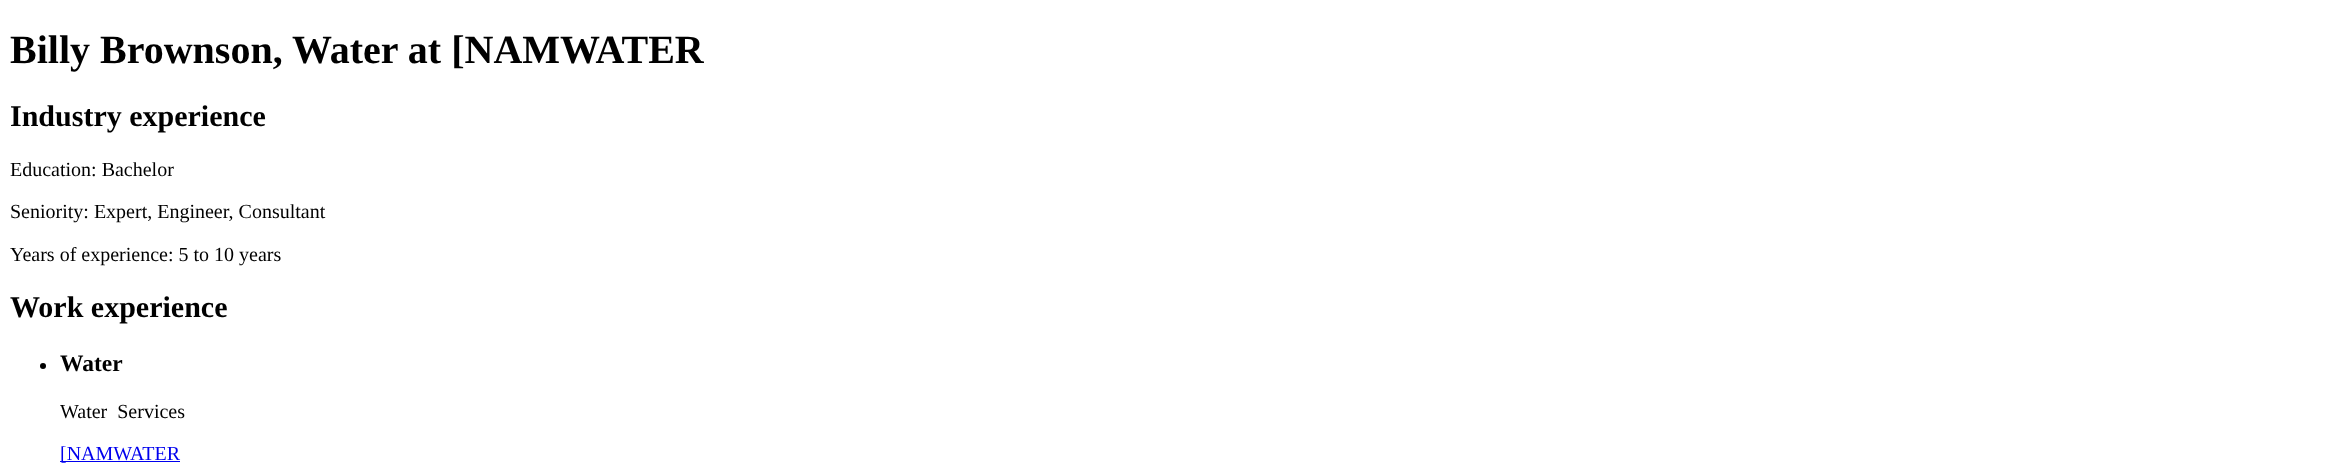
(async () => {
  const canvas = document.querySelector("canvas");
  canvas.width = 2329;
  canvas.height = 472;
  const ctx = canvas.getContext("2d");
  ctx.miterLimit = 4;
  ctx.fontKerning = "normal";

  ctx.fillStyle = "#ffffff";
  ctx.fillRect(0, 0, 2329, 472);
  ctx.fillStyle = "#000000";
  ctx.beginPath();
  ctx.arc(43, 366, 3, 0, Math.PI * 2);
  ctx.fill();
  ctx.fillStyle = "#0000ee";
  ctx.fillRect(60, 461, 120, 1);
  ctx.font = "bold 40px Liberation Serif";
  ctx.fillStyle = "#000000";
  ctx.fillText("Billy Brownson, Water at [NAMWATER", 10, 63);
  ctx.font = "bold 30px Liberation Serif";
  ctx.fillText("Industry experience", 10, 126);
  ctx.font = "20px Liberation Serif";
  for (const [text, x, y] of [
    ["Education: Bachelor", 10, 176],
    ["Seniority: Expert, Engineer, Consultant", 10, 218],
    ["Years of experience: 5 to 10 years", 10, 261],
  ]) {
    ctx.fillText(text, x, y);
  }
  ctx.font = "bold 30px Liberation Serif";
  ctx.fillText("Work experience", 10, 317);
  ctx.font = "bold 23.5px Liberation Serif";
  ctx.fillText("Water", 60, 371);
  ctx.font = "20px Liberation Serif";
  ctx.fillText("Water  Services", 60, 418);
  ctx.fillStyle = "#0000ee";
  ctx.fillText("[NAMWATER", 60, 460);
})();
